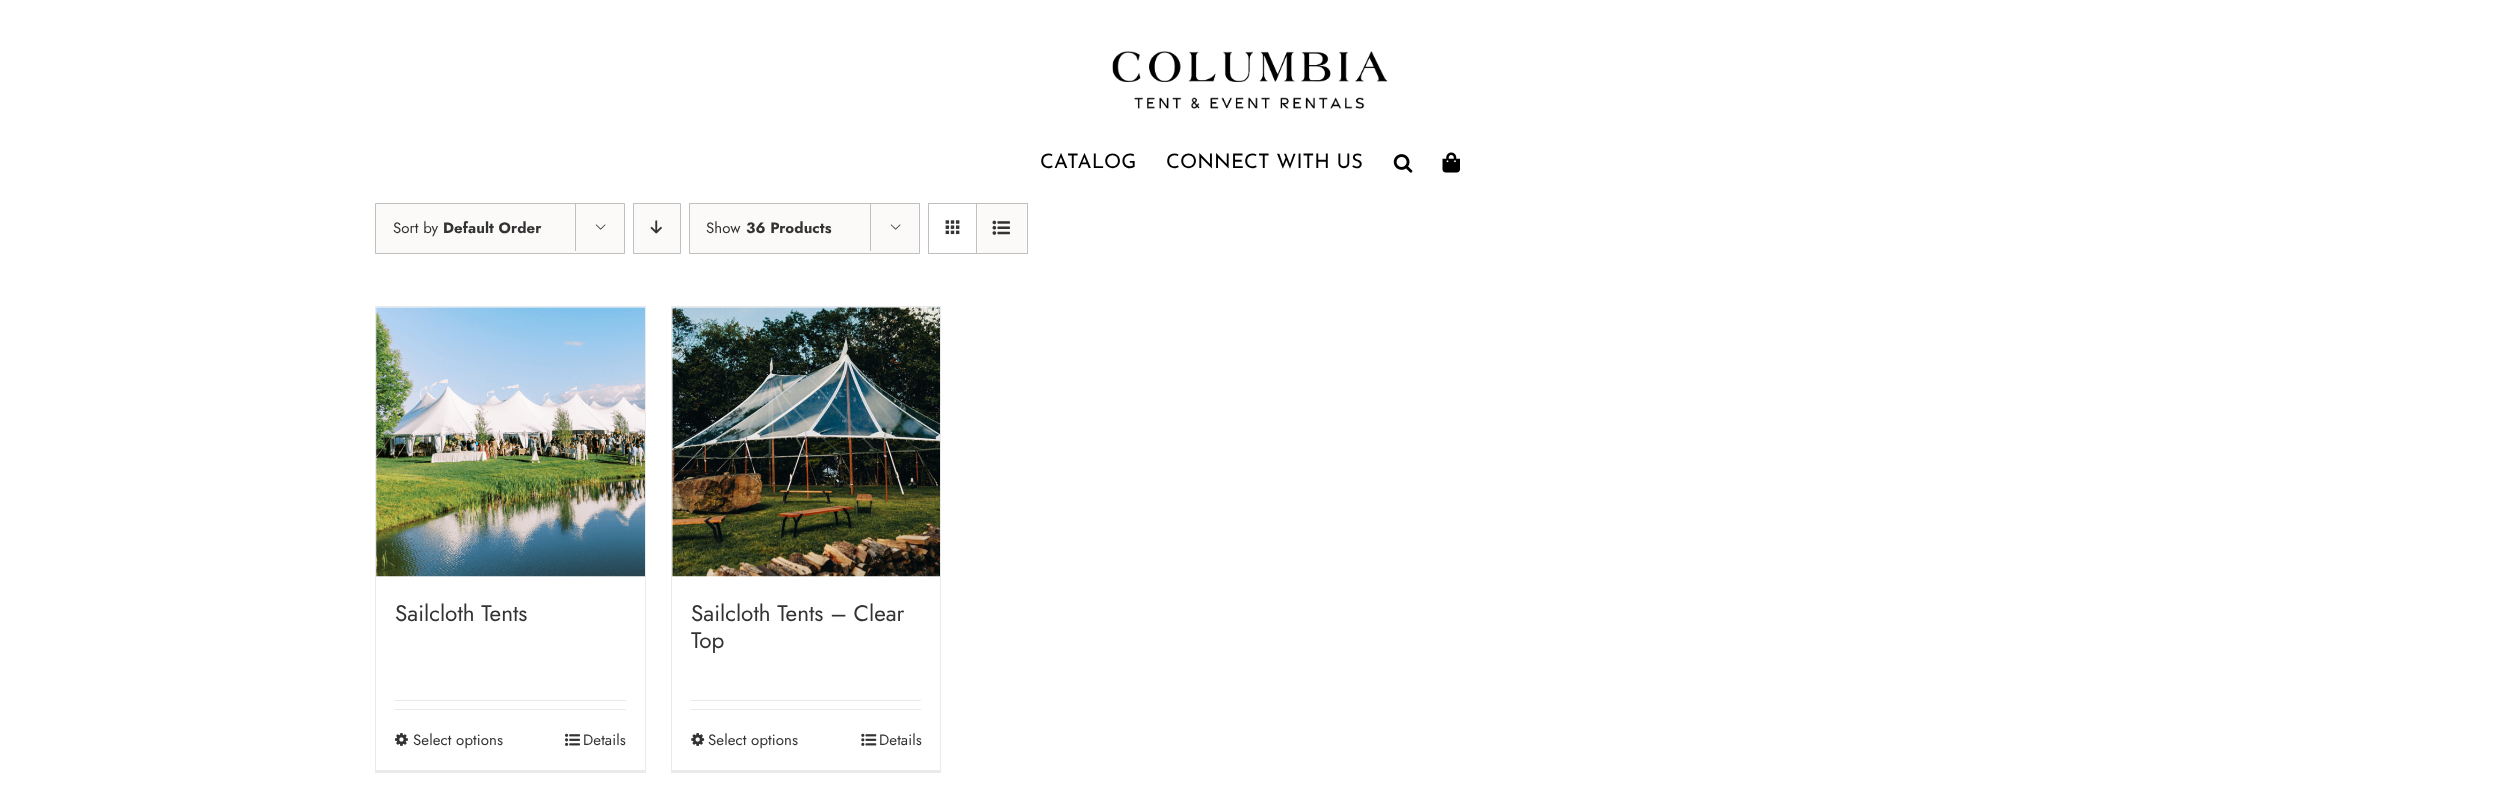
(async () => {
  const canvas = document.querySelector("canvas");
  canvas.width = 2499;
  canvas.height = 787;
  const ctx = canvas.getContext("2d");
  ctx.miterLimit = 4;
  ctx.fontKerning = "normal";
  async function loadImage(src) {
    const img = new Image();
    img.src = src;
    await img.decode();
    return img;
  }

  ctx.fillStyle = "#ffffff";
  ctx.fillRect(0, 0, 2499, 787);
  ctx.drawImage(await loadImage("img/1.png"), 1112, 51, 276, 58);
  ctx.drawImage(await loadImage("img/2.png"), 1393, 154, 20, 19);
  ctx.drawImage(await loadImage("img/3.png"), 1442, 152, 18, 21);
  ctx.fillStyle = "#fbfaf9";
  ctx.beginPath();
  ctx.rect(375.5, 203.5, 249, 50);
  ctx.fill();
  ctx.strokeStyle = "#bfbfbf";
  ctx.stroke();
  ctx.fillStyle = "#bfbfbf";
  ctx.fillRect(575, 203, 1, 48);
  ctx.drawImage(await loadImage("img/4.png"), 595, 224, 11, 6);
  ctx.fillStyle = "#fbfaf9";
  ctx.beginPath();
  ctx.rect(633.5, 203.5, 47, 50);
  ctx.fill();
  ctx.stroke();
  ctx.drawImage(await loadImage("img/5.png"), 650, 220, 12, 14);
  ctx.beginPath();
  ctx.rect(689.5, 203.5, 230, 50);
  ctx.fill();
  ctx.stroke();
  ctx.fillStyle = "#bfbfbf";
  ctx.fillRect(870, 203, 1, 48);
  ctx.drawImage(await loadImage("img/4.png"), 890, 224, 11, 6);
  ctx.strokeRect(928.5, 203.5, 99, 50);
  ctx.fillRect(976, 204, 1, 49);
  ctx.drawImage(await loadImage("img/6.png"), 945, 220, 15, 15);
  ctx.fillStyle = "#fbfaf9";
  ctx.fillRect(978, 204, 48, 49);
  ctx.drawImage(await loadImage("img/7.png"), 992, 220, 18, 15);
  for (const [x, y, w, h, color] of [
    [375, 306, 271, 1, "#ebeaea"],
    [645, 306, 1, 467, "#ebeaea"],
    [375, 770, 271, 3, "#ebeaea"],
    [375, 306, 1, 467, "#ebeaea"],
  ]) {
    ctx.fillStyle = color;
    ctx.fillRect(x, y, w, h);
  }
  ctx.drawImage(await loadImage("img/8.png"), 376, 307, 269, 270);
  ctx.fillRect(395, 700, 231, 1);
  ctx.fillRect(395, 709, 231, 1);
  ctx.drawImage(await loadImage("img/9.png"), 395, 733, 13, 13);
  ctx.drawImage(await loadImage("img/10.png"), 565, 733, 15, 13);
  for (const [x, y, w, h, color] of [
    [671, 306, 270, 1, "#ebeaea"],
    [940, 306, 1, 467, "#ebeaea"],
    [671, 770, 270, 3, "#ebeaea"],
    [671, 306, 1, 467, "#ebeaea"],
  ]) {
    ctx.fillStyle = color;
    ctx.fillRect(x, y, w, h);
  }
  ctx.drawImage(await loadImage("img/11.png"), 672, 307, 268, 270);
  ctx.fillRect(691, 700, 230, 1);
  ctx.fillRect(691, 709, 230, 1);
  ctx.drawImage(await loadImage("img/12.png"), 691, 733, 14, 13);
  ctx.drawImage(await loadImage("img/13.png"), 861, 733, 16, 13);
  ctx.letterSpacing = "0.1px";
  ctx.font = "100 20px Josefin Sans";
  ctx.fillStyle = "#000000";
  ctx.fillText("CATALOG", 1040, 168);
  ctx.fillText("CONNECT WITH US", 1166, 168);
  ctx.font = "15px Jost";
  ctx.fillStyle = "#333333";
  ctx.fillText("Sort by", 393, 233);
  ctx.font = "bold 15px Jost";
  ctx.fillText("Default Order", 443, 233);
  ctx.font = "15px Jost";
  ctx.fillText("Show", 706, 233);
  ctx.font = "bold 15px Jost";
  ctx.fillText("36 Products", 746, 233);
  ctx.letterSpacing = "0px";
  ctx.font = "22.5px Jost";
  ctx.fillText("Sailcloth Tents", 395, 621);
  ctx.letterSpacing = "0.1px";
  ctx.font = "15px Jost";
  ctx.fillText("Select options", 413, 745);
  ctx.fillText("Details", 583, 745);
  ctx.letterSpacing = "0px";
  ctx.font = "22.5px Jost";
  ctx.fillText("Sailcloth Tents – Clear", 691, 621);
  ctx.fillText("Top", 691, 648);
  ctx.letterSpacing = "0.1px";
  ctx.font = "15px Jost";
  ctx.fillText("Select options", 708, 745);
  ctx.fillText("Details", 879, 745);
})();
